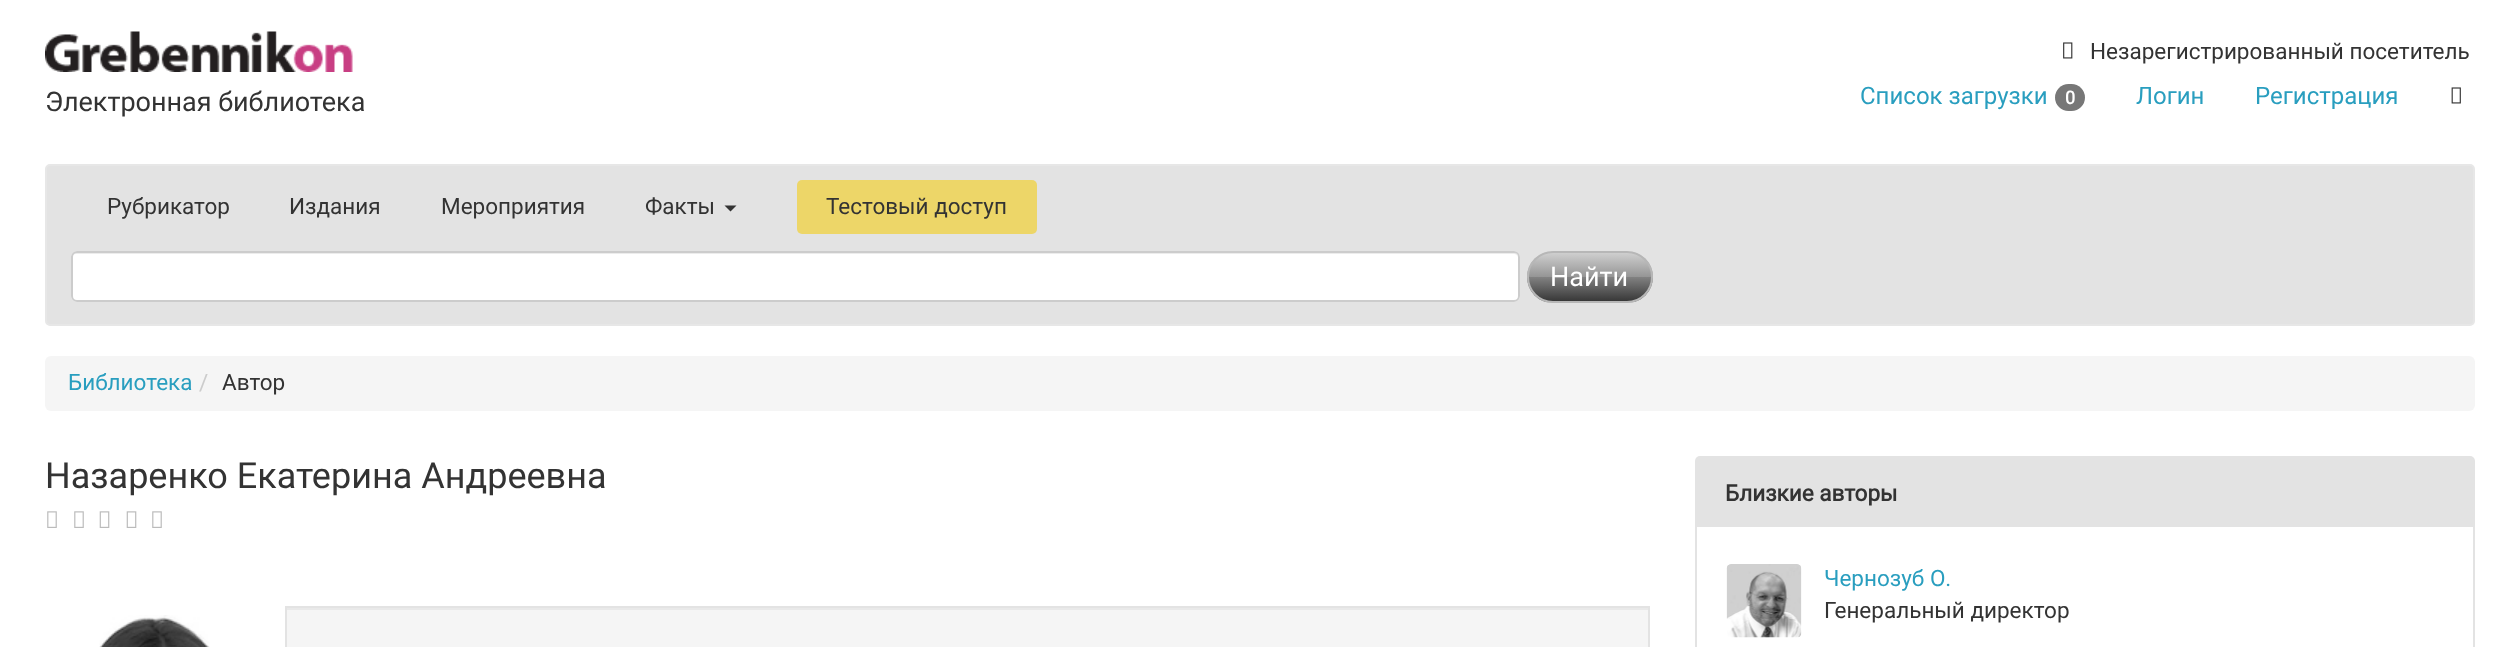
(async () => {
  const canvas = document.querySelector("canvas");
  canvas.width = 2519;
  canvas.height = 647;
  const ctx = canvas.getContext("2d");
  ctx.miterLimit = 4;
  ctx.fontKerning = "normal";
  async function loadImage(src) {
    const img = new Image();
    img.src = src;
    await img.decode();
    return img;
  }
  let gradient, path;

  ctx.fillStyle = "#ffffff";
  ctx.fillRect(0, 0, 2519, 647);
  ctx.drawImage(await loadImage("img/1.png"), 45, 31, 308, 41);
  ctx.drawImage(await loadImage("img/2.png"), 2063, 42, 10, 17);
  ctx.fillStyle = "#777777";
  ctx.beginPath();
  ctx.roundRect(2055, 84, 30, 27, 13.5);
  ctx.fill();
  ctx.drawImage(await loadImage("img/3.png"), 2451, 87, 10, 17);
  ctx.fillStyle = "#e3e3e3";
  ctx.beginPath();
  ctx.roundRect(46, 165, 2428, 160, 4);
  ctx.fill();
  ctx.strokeStyle = "#e7e7e7";
  ctx.lineWidth = 2;
  ctx.stroke();
  ctx.fillStyle = "#333333";
  path = new Path2D("M724.5 205.5H736.5L730.5 211.5Z");
  ctx.fill(path);
  ctx.fillStyle = "#edd668";
  ctx.beginPath();
  ctx.roundRect(797, 180, 240, 54, 5);
  ctx.fill();
  ctx.fillStyle = "#ffffff";
  ctx.beginPath();
  ctx.roundRect(71, 251, 1449, 51, 6);
  ctx.fill();
  ctx.fillStyle = "#ececec";
  path = new Path2D("M76 254H1514C1516 254 1518 256 1518 258C1518 255 1516 252 1513 252H77C74 252 72 255 72 258C72 256 74 254 76 254Z");
  ctx.fill(path);
  ctx.beginPath();
  ctx.roundRect(72, 252, 1447, 49, 5);
  ctx.strokeStyle = "#cccccc";
  ctx.stroke();
  ctx.save();
  ctx.beginPath();
  ctx.roundRect(1527, 251, 126, 52, 26);
  ctx.clip();
  gradient = ctx.createLinearGradient(1590, 252, 1590, 302);
  gradient.addColorStop(0, "#d1d1d1");
  gradient.addColorStop(0.5, "#959595");
  gradient.addColorStop(0.5, "#828282");
  gradient.addColorStop(1, "#353535");
  ctx.fillStyle = gradient;
  ctx.fillRect(1527, 252, 126, 50);
  ctx.restore();
  ctx.beginPath();
  ctx.roundRect(1528, 252, 124, 50, 25);
  ctx.strokeStyle = "#b7b7b7";
  ctx.stroke();
  ctx.fillStyle = "#f5f5f5";
  ctx.beginPath();
  ctx.roundRect(45, 356, 2430, 55, 6);
  ctx.fill();
  ctx.drawImage(await loadImage("img/4.png"), 47, 511, 10, 17);
  ctx.drawImage(await loadImage("img/4.png"), 74, 511, 10, 17);
  ctx.drawImage(await loadImage("img/5.png"), 99, 511, 11, 17);
  ctx.drawImage(await loadImage("img/5.png"), 126, 511, 11, 17);
  ctx.drawImage(await loadImage("img/4.png"), 152, 511, 10, 17);
  ctx.drawImage(await loadImage("img/6.png"), 99, 615, 111, 32);
  ctx.fillRect(287, 610, 1361, 37);
  ctx.fillStyle = "#e9e9e9";
  ctx.fillRect(287, 608, 1362, 2);
  ctx.strokeStyle = "#e3e3e3";
  ctx.strokeRect(286, 607, 1363, 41);
  ctx.fillStyle = "#e3e3e3";
  ctx.beginPath();
  ctx.roundRect(1695, 456, 780, 69, [5, 5, 0, 0]);
  ctx.fill();
  ctx.strokeRect(1696, 526, 778, 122);
  ctx.drawImage(await loadImage("img/7.png"), 1726, 564, 76, 74);
  ctx.font = "27px Roboto";
  ctx.fillStyle = "#333333";
  ctx.fillText("Электронная библиотека", 45, 111);
  ctx.font = "22.5px Roboto";
  ctx.fillText("Незарегистрированный посетитель", 2090, 59);
  ctx.font = "24px Roboto";
  ctx.fillStyle = "#299ebf";
  ctx.fillText("Список загрузки", 1860, 104);
  ctx.font = "bold 18px Roboto";
  ctx.fillStyle = "#ffffff";
  ctx.fillText("0", 2065, 104);
  ctx.font = "24px Roboto";
  ctx.fillStyle = "#299ebf";
  ctx.fillText("Логин", 2136, 104);
  ctx.fillText("Регистрация", 2255, 104);
  ctx.font = "22.5px Roboto";
  ctx.fillStyle = "#333333";
  for (const [text, x, y] of [
    ["Рубрикатор", 107, 214],
    ["Издания", 289, 214],
    ["Мероприятия", 441, 214],
    ["Факты", 645, 214],
    ["Тестовый доступ", 826, 214],
  ]) {
    ctx.fillText(text, x, y);
  }
  ctx.font = "27px Roboto";
  ctx.fillStyle = "#ffffff";
  ctx.fillText("Найти", 1550, 286);
  ctx.font = "22.5px Roboto";
  ctx.fillStyle = "#299ebf";
  ctx.fillText("Библиотека", 68, 390);
  ctx.fillStyle = "#cccccc";
  ctx.fillText("/", 199, 390);
  ctx.fillStyle = "#333333";
  ctx.fillText("Автор", 222, 390);
  ctx.font = "36px Roboto";
  ctx.fillText("Назаренко Екатерина Андреевна", 45, 488);
  ctx.font = "bold 22.5px Roboto";
  ctx.fillText("Близкие авторы", 1725, 501);
  ctx.font = "22.5px Roboto";
  ctx.fillStyle = "#299ebf";
  ctx.fillText("Чернозуб О.", 1824, 586);
  ctx.fillStyle = "#333333";
  ctx.fillText("Генеральный директор", 1824, 618);
})();
